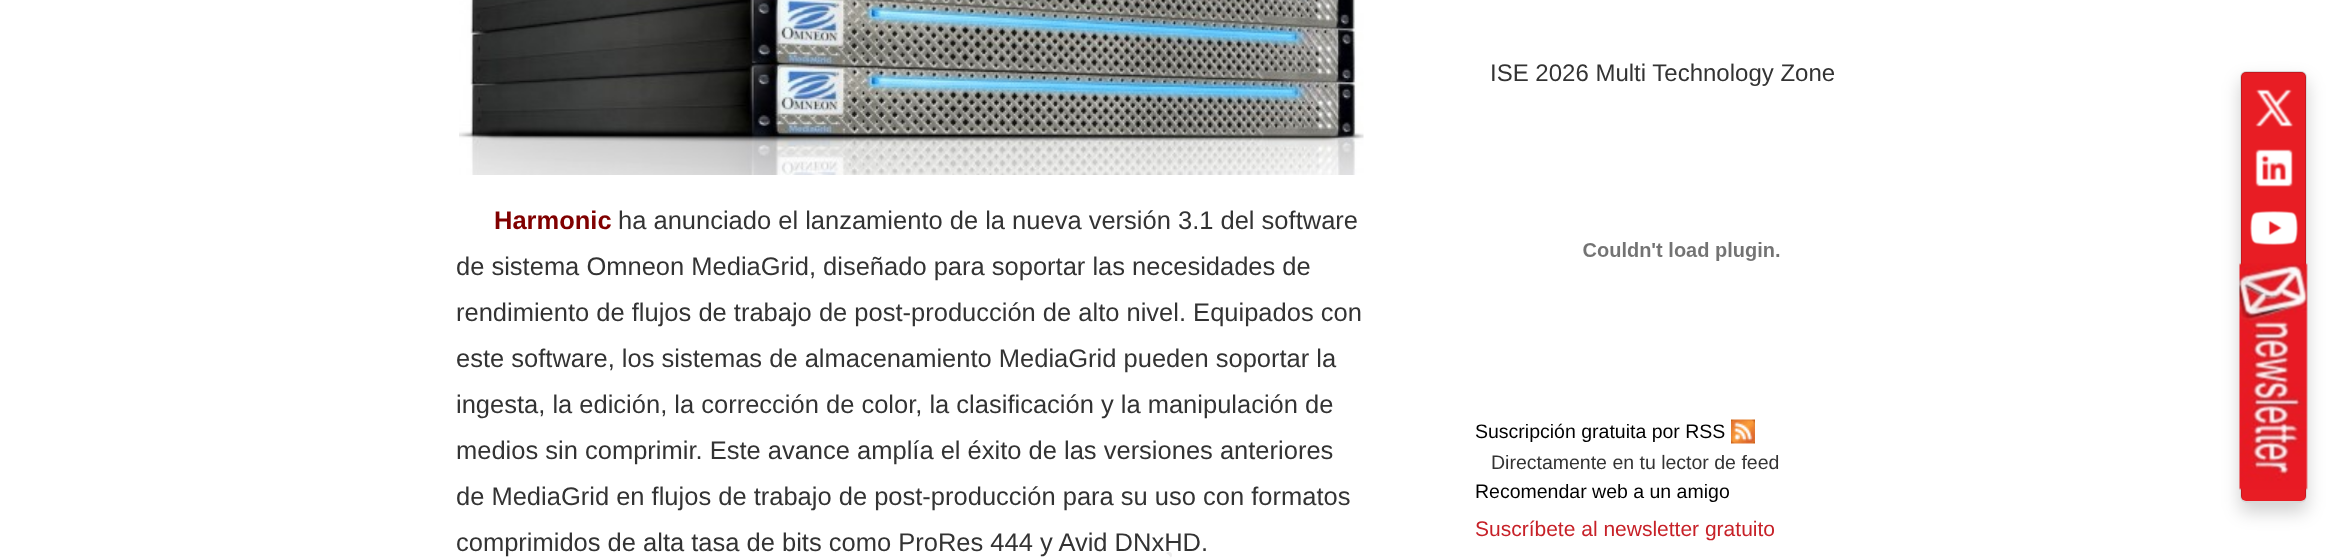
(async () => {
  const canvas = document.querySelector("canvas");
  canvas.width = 2337;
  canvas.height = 558;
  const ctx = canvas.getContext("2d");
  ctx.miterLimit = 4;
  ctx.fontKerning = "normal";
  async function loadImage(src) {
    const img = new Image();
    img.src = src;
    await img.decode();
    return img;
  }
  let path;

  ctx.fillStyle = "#ffffff";
  ctx.fillRect(0, 0, 2337, 558);
  ctx.drawImage(await loadImage("img/1.png"), 459, 0, 905, 175);
  ctx.drawImage(await loadImage("img/2.png"), 1583, 242, 197, 19);
  ctx.drawImage(await loadImage("img/3.png"), 1731, 419, 24, 25);
  ctx.save();
  path = new Path2D("M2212 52H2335V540H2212ZM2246 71H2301C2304.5 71 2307 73.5 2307 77V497C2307 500.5 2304.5 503 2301 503H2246C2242.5 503 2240 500.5 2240 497V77C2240 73.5 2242.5 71 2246 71Z");
  ctx.clip(path, "evenodd");
  ctx.fillStyle = "rgba(0, 0, 0, 0.18)";
  ctx.filter = "blur(9px)";
  ctx.beginPath();
  ctx.roundRect(2240, 80, 67, 432, 6);
  ctx.fill();
  ctx.filter = "none";
  ctx.restore();
  ctx.fillStyle = "#e81d24";
  ctx.beginPath();
  ctx.roundRect(2241, 72, 65, 429, 5);
  ctx.fill();
  ctx.beginPath();
  ctx.roundRect(2241, 72, 65, 430, 5);
  ctx.strokeStyle = "rgba(0, 0, 0, 0.15)";
  ctx.lineWidth = 2;
  ctx.stroke();
  ctx.drawImage(await loadImage("img/4.png"), 2255, 89, 39, 38);
  ctx.drawImage(await loadImage("img/5.png"), 2255, 149, 38, 38);
  ctx.drawImage(await loadImage("img/6.png"), 2250, 211, 48, 34);
  ctx.drawImage(await loadImage("img/7.png"), 2239, 263, 69, 227);
  ctx.font = "bold 25.5px Liberation Sans";
  ctx.fillStyle = "#800000";
  ctx.fillText("Harmonic", 494, 229);
  ctx.font = "25.5px Liberation Sans";
  ctx.fillStyle = "#333333";
  for (const [text, x, y] of [
    ["ha anunciado el lanzamiento de la nueva versión 3.1 del software", 618, 229],
    ["de sistema Omneon MediaGrid, diseñado para soportar las necesidades de", 456, 275],
    ["rendimiento de flujos de trabajo de post-producción de alto nivel. Equipados con", 456, 321],
    ["este software, los sistemas de almacenamiento MediaGrid pueden soportar la", 456, 367],
    ["ingesta, la edición, la corrección de color, la clasificación y la manipulación de", 456, 413],
    ["medios sin comprimir. Este avance amplía el éxito de las versiones anteriores", 456, 459],
    ["de MediaGrid en flujos de trabajo de post-producción para su uso con formatos", 456, 505],
    ["comprimidos de alta tasa de bits como ProRes 444 y Avid DNxHD.", 456, 551],
  ]) {
    ctx.fillText(text, x, y);
  }
  ctx.font = "24px Liberation Sans";
  ctx.fillText("ISE 2026 Multi Technology Zone", 1490, 81);
  ctx.font = "19.5px Liberation Sans";
  ctx.fillStyle = "#000000";
  ctx.fillText("Suscripción gratuita por RSS", 1475, 438);
  ctx.fillStyle = "#333333";
  ctx.fillText("Directamente en tu lector de feed", 1491, 469);
  ctx.fillStyle = "#000000";
  ctx.fillText("Recomendar web a un amigo", 1475, 498);
  ctx.font = "21px Liberation Sans";
  ctx.fillStyle = "#c72128";
  ctx.fillText("Suscríbete al newsletter gratuito", 1475, 536);
  ctx.fillStyle = "#eeeeee";
  ctx.beginPath();
  ctx.arc(1169, 555, 3, 0, Math.PI * 2);
  ctx.fill();
  ctx.fillStyle = "#ffffff";
  ctx.beginPath();
  ctx.roundRect(1142, 552, 30, 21, 15);
  ctx.fill();
})();
